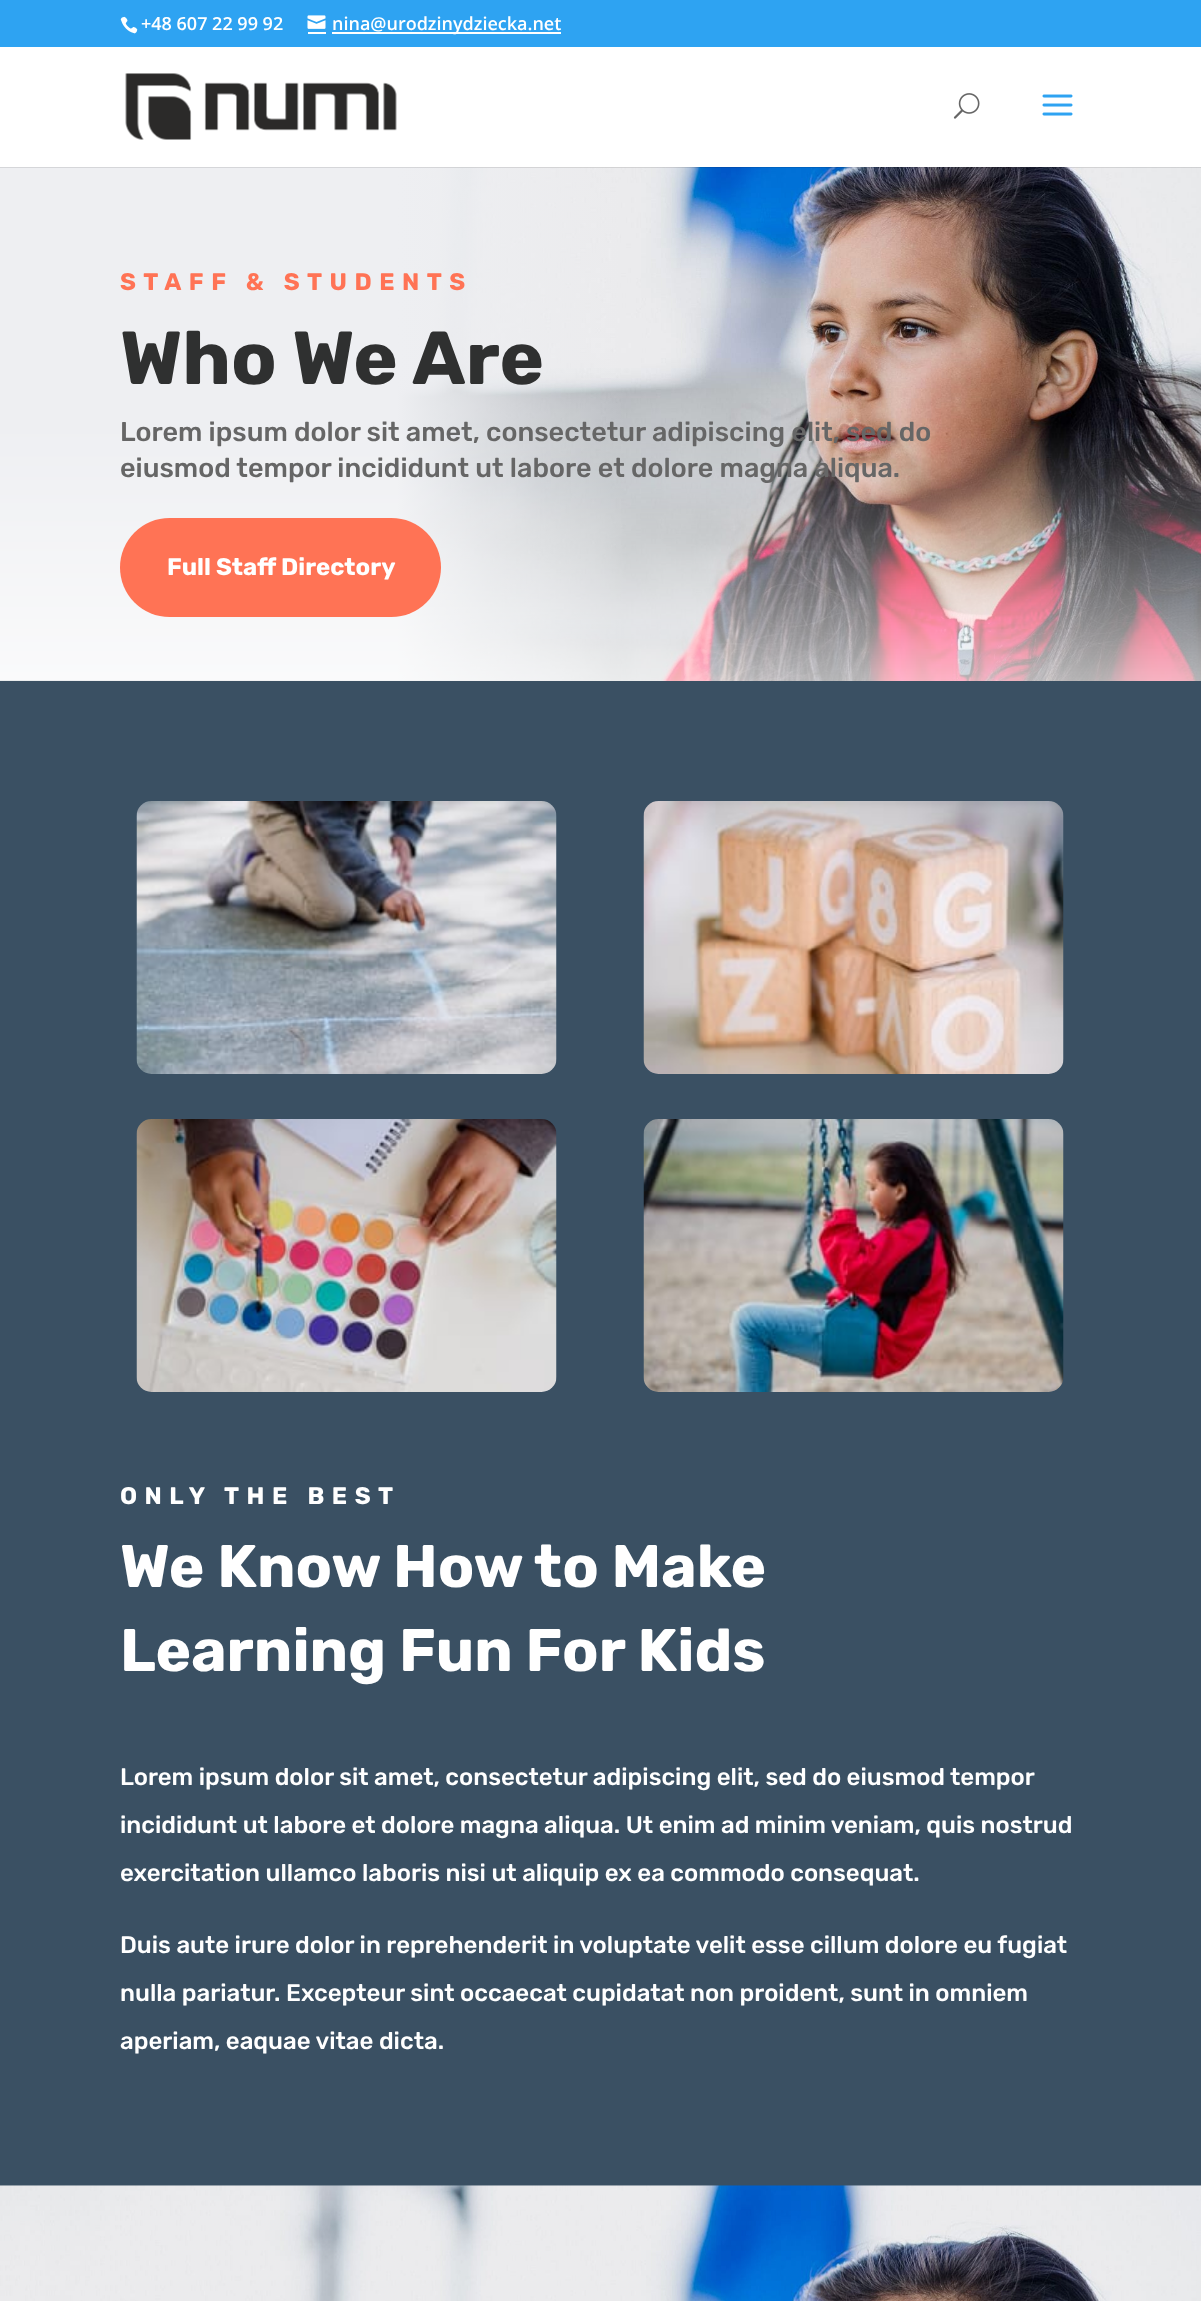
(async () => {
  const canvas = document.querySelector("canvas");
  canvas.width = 1201;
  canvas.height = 2301;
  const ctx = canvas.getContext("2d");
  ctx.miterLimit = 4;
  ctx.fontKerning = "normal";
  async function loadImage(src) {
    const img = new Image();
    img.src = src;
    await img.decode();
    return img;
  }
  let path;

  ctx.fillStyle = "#ffffff";
  ctx.fillRect(0, 0, 1201, 2301);
  ctx.fillStyle = "#2ea3f2";
  ctx.fillRect(0, 0, 1201, 47);
  ctx.drawImage(await loadImage("img/1.png"), 120, 16, 18, 18);
  ctx.drawImage(await loadImage("img/2.png"), 307, 15, 19, 14);
  ctx.fillStyle = "#ffffff";
  ctx.fillRect(308, 32, 18, 2);
  ctx.fillRect(332, 32, 229, 2);
  ctx.drawImage(await loadImage("img/6.png"), 0, 167, 1201, 514);
  ctx.fillStyle = "rgba(0, 0, 0, 0.1)";
  path = new Path2D("M0 166V168H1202V48V166Z");
  ctx.fill(path);
  ctx.fillStyle = "#ffffff";
  ctx.fillRect(0, 166, 1201, 1);
  ctx.drawImage(await loadImage("img/3.png"), 125, 73, 272, 67);
  ctx.drawImage(await loadImage("img/4.png"), 953, 93, 27, 26);
  ctx.drawImage(await loadImage("img/5.png"), 1042, 94, 31, 22);
  ctx.fillStyle = "#ff7355";
  ctx.beginPath();
  ctx.roundRect(120, 518, 321, 99, 49.5);
  ctx.fill();
  ctx.fillStyle = "#3a5063";
  ctx.fillRect(0, 681, 1201, 1505);
  ctx.drawImage(await loadImage("img/7.png"), 136, 801, 421, 273);
  ctx.drawImage(await loadImage("img/8.png"), 643, 801, 421, 273);
  ctx.drawImage(await loadImage("img/9.png"), 136, 1119, 421, 273);
  ctx.drawImage(await loadImage("img/10.png"), 643, 1119, 421, 273);
  ctx.drawImage(await loadImage("img/11.png"), 0, 2185, 1201, 116);
  ctx.font = "600 18px Open Sans";
  ctx.fillStyle = "#ffffff";
  ctx.fillText("+48 607 22 99 92", 141, 30);
  ctx.fillText("nina@urodzinydziecka.net", 332, 30);
  ctx.letterSpacing = "7.5px";
  ctx.font = "300 24px Rubik";
  ctx.fillStyle = "#ff7355";
  ctx.fillText("STAFF & STUDENTS", 120, 290);
  ctx.letterSpacing = "0px";
  ctx.font = "300 75px Rubik";
  ctx.fillStyle = "#2f3030";
  ctx.fillText("Who We Are", 120, 384);
  ctx.font = "300 27px 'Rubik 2'";
  ctx.fillStyle = "#666666";
  ctx.fillText("Lorem ipsum dolor sit amet, consectetur adipiscing elit, sed do", 120, 441);
  ctx.fillText("eiusmod tempor incididunt ut labore et dolore magna aliqua.", 120, 477);
  ctx.font = "300 24px Rubik";
  ctx.fillStyle = "#ffffff";
  ctx.fillText("Full Staff Directory", 167, 575);
  ctx.letterSpacing = "7.5px";
  ctx.fillText("ONLY THE BEST", 120, 1504);
  ctx.letterSpacing = "0px";
  ctx.font = "300 60px Rubik";
  ctx.fillText("We Know How to Make", 120, 1587);
  ctx.fillText("Learning Fun For Kids", 120, 1671);
  ctx.font = "300 24px 'Rubik 2'";
  for (const [text, x, y] of [
    ["Lorem ipsum dolor sit amet, consectetur adipiscing elit, sed do eiusmod tempor", 120, 1785],
    ["incididunt ut labore et dolore magna aliqua. Ut enim ad minim veniam, quis nostrud", 120, 1833],
    ["exercitation ullamco laboris nisi ut aliquip ex ea commodo consequat.", 120, 1881],
    ["Duis aute irure dolor in reprehenderit in voluptate velit esse cillum dolore eu fugiat", 120, 1953],
    ["nulla pariatur. Excepteur sint occaecat cupidatat non proident, sunt in omniem", 120, 2001],
    ["aperiam, eaquae vitae dicta.", 120, 2049],
  ]) {
    ctx.fillText(text, x, y);
  }
})();
